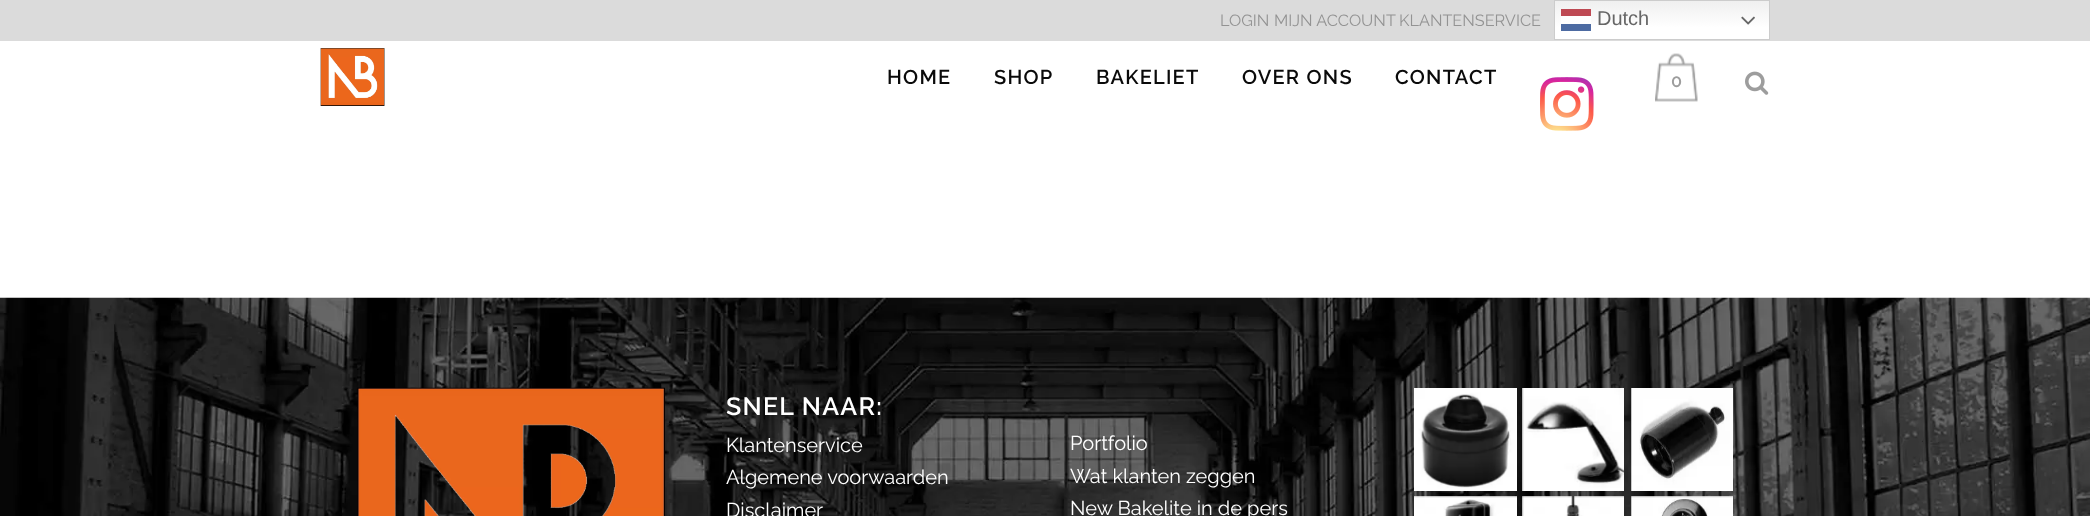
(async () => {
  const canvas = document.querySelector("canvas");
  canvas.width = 2090;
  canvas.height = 516;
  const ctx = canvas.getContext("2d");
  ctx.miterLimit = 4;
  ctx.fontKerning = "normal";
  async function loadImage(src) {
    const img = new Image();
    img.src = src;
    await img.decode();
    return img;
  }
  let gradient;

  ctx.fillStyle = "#ffffff";
  ctx.fillRect(0, 0, 2090, 516);
  ctx.fillStyle = "#dbdbdb";
  ctx.fillRect(0, 0, 2090, 41);
  gradient = ctx.createLinearGradient(1662, 0, 1662, 40);
  gradient.addColorStop(0, "#efefef");
  gradient.addColorStop(0.7, "#ffffff");
  ctx.fillStyle = gradient;
  ctx.fillRect(1555, 1, 214, 38);
  gradient = ctx.createLinearGradient(1662, 0, 1662, 40);
  gradient.addColorStop(0, "#fcfcfc");
  gradient.addColorStop(0.7, "#ffffff");
  ctx.fillStyle = gradient;
  ctx.fillRect(1561, 16, 30, 8);
  ctx.strokeStyle = "#cccccc";
  ctx.strokeRect(1554.5, 0.5, 215, 39);
  ctx.fillStyle = "#be4953";
  ctx.fillRect(1561, 9, 30, 7);
  ctx.drawImage(await loadImage("img/1.png"), 1741, 16, 14, 9);
  ctx.fillStyle = "#4d6ba2";
  ctx.fillRect(1561, 24, 30, 7);
  ctx.drawImage(await loadImage("img/2.png"), 320, 48, 65, 58);
  ctx.drawImage(await loadImage("img/3.png"), 1540, 77, 54, 54);
  ctx.drawImage(await loadImage("img/4.png"), 1655, 53, 43, 49);
  ctx.drawImage(await loadImage("img/5.png"), 1745, 71, 24, 24);
  ctx.drawImage(await loadImage("img/6.png"), 0, 297, 2090, 219);
  ctx.drawImage(await loadImage("img/7.png"), 357, 387, 308, 129);
  ctx.drawImage(await loadImage("img/8.png"), 1414, 388, 103, 103);
  ctx.drawImage(await loadImage("img/9.png"), 1522, 388, 102, 103);
  ctx.drawImage(await loadImage("img/10.png"), 1631, 388, 102, 103);
  ctx.drawImage(await loadImage("img/11.png"), 1414, 496, 103, 20);
  ctx.drawImage(await loadImage("img/12.png"), 1522, 496, 102, 20);
  ctx.drawImage(await loadImage("img/13.png"), 1631, 496, 102, 20);
  ctx.font = "16.25px Raleway";
  ctx.fillStyle = "#939393";
  for (const [text, x, y] of [
    ["LOGIN", 1220, 26],
    ["MIJN ACCOUNT", 1274, 26],
    ["KLANTENSERVICE", 1399, 26],
  ]) {
    ctx.fillText(text, x, y);
  }
  ctx.font = "20px Liberation Sans";
  ctx.fillStyle = "#666666";
  ctx.fillText("Dutch", 1597, 25);
  ctx.letterSpacing = "1.25px";
  ctx.font = "600 20px Raleway";
  ctx.fillStyle = "#0a0a0a";
  for (const [text, x, y] of [
    ["HOME", 887, 84],
    ["SHOP", 994, 84],
    ["BAKELIET", 1096, 84],
    ["OVER ONS", 1242, 84],
    ["CONTACT", 1395, 84],
  ]) {
    ctx.fillText(text, x, y);
  }
  ctx.letterSpacing = "0px";
  ctx.font = "600 18px Raleway";
  ctx.fillStyle = "#9d9d9d";
  ctx.fillText("0", 1671, 87);
  ctx.letterSpacing = "1.25px";
  ctx.font = "600 25px Raleway";
  ctx.fillStyle = "#ffffff";
  ctx.fillText("SNEL NAAR:", 726, 415);
  ctx.letterSpacing = "0px";
  ctx.font = "20px Raleway";
  for (const [text, x, y] of [
    ["Klantenservice", 726, 452],
    ["Algemene voorwaarden", 726, 484],
    ["Disclaimer", 726, 517],
    ["Portfolio", 1070, 450],
    ["Wat klanten zeggen", 1070, 483],
    ["New Bakelite in de pers", 1070, 515],
  ]) {
    ctx.fillText(text, x, y);
  }
})();
